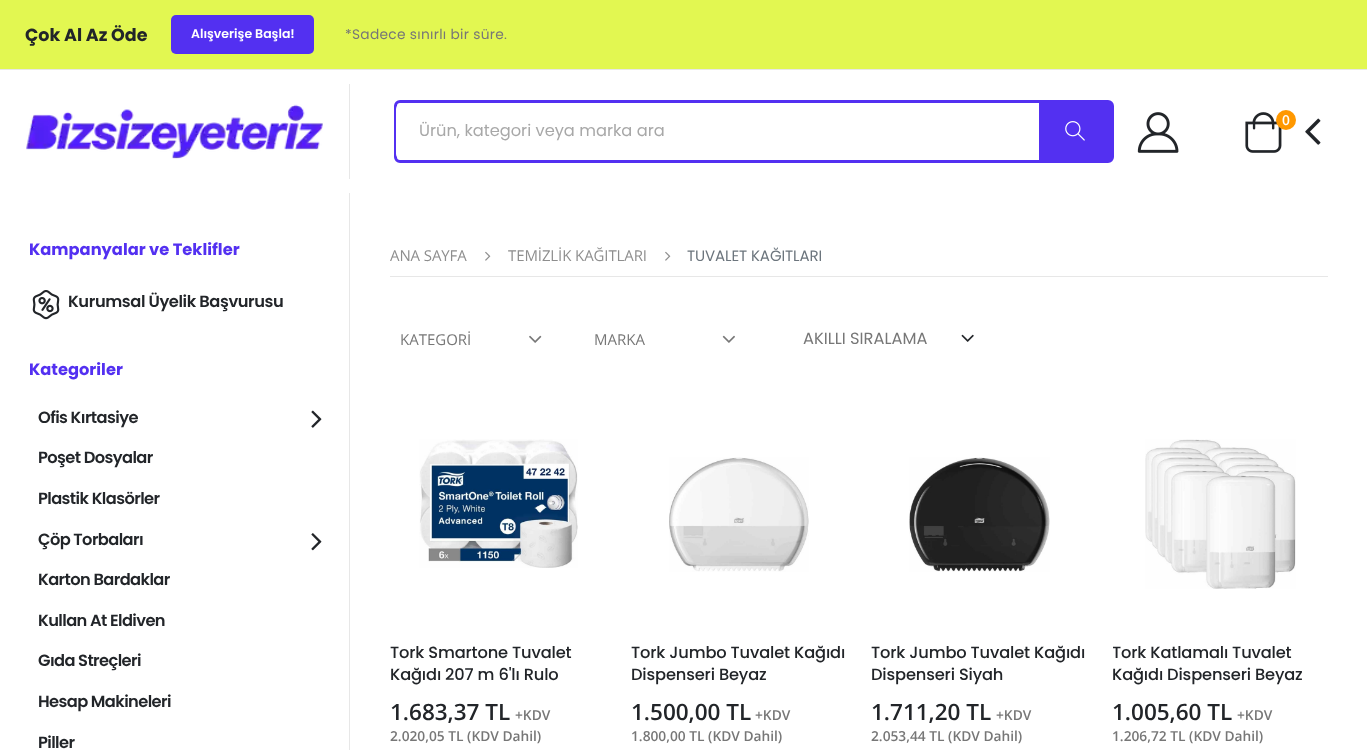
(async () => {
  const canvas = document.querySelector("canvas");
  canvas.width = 1367;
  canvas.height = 750;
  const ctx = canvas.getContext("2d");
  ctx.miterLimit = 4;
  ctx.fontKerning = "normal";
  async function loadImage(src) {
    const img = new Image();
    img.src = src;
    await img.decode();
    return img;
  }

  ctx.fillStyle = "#ffffff";
  ctx.fillRect(0, 0, 1367, 750);
  ctx.fillStyle = "#e2f751";
  ctx.fillRect(0, 0, 1367, 69);
  ctx.fillStyle = "#e7e7e7";
  ctx.fillRect(0, 69, 1367, 1);
  ctx.fillStyle = "#5330f1";
  ctx.beginPath();
  ctx.roundRect(171, 15, 143, 39, 5);
  ctx.fill();
  ctx.fillStyle = "#e7e7e7";
  ctx.fillRect(349, 84, 1, 95);
  ctx.drawImage(await loadImage("img/1.png"), 26, 104, 297, 55);
  ctx.beginPath();
  ctx.roundRect(395.5, 101.5, 717, 60, 4.5);
  ctx.strokeStyle = "#5330f1";
  ctx.lineWidth = 3;
  ctx.stroke();
  ctx.fillStyle = "#ffffff";
  ctx.beginPath();
  ctx.roundRect(396, 103, 642, 57, 6);
  ctx.fill();
  ctx.fillStyle = "#5330f1";
  ctx.fillRect(1039, 103, 72, 57);
  ctx.drawImage(await loadImage("img/2.png"), 1065, 121, 20, 20);
  ctx.drawImage(await loadImage("img/3.png"), 1137, 112, 42, 41);
  ctx.drawImage(await loadImage("img/4.png"), 1245, 112, 37, 41);
  ctx.fillStyle = "#ff9800";
  ctx.beginPath();
  ctx.arc(1286, 120, 10, 0, Math.PI * 2);
  ctx.fill();
  ctx.drawImage(await loadImage("img/5.png"), 1305, 118, 16, 27);
  ctx.fillStyle = "#e7e7e7";
  ctx.fillRect(349, 193, 1, 557);
  ctx.drawImage(await loadImage("img/6.png"), 32, 290, 28, 30);
  ctx.drawImage(await loadImage("img/7.png"), 311, 410, 11, 18);
  ctx.drawImage(await loadImage("img/8.png"), 311, 533, 11, 18);
  ctx.fillRect(390, 276, 938, 1);
  ctx.drawImage(await loadImage("img/9.png"), 485, 251, 6, 10);
  ctx.drawImage(await loadImage("img/9.png"), 665, 251, 6, 10);
  ctx.drawImage(await loadImage("img/10.png"), 529, 335, 13, 8);
  ctx.drawImage(await loadImage("img/11.png"), 722, 335, 13, 8);
  ctx.drawImage(await loadImage("img/12.png"), 961, 334, 13, 8);
  ctx.drawImage(await loadImage("img/13.png"), 419, 439, 159, 129);
  ctx.drawImage(await loadImage("img/14.png"), 669, 457, 140, 115);
  ctx.drawImage(await loadImage("img/15.png"), 909, 457, 141, 115);
  ctx.drawImage(await loadImage("img/16.png"), 1145, 439, 151, 150);
  ctx.font = "bold 17.5px Poppins";
  ctx.fillStyle = "#222529";
  ctx.fillText("Çok Al Az Öde", 25, 41);
  ctx.font = "600 12.5px Poppins";
  ctx.fillStyle = "#ffffff";
  ctx.fillText("Alışverişe Başla!", 191, 38);
  ctx.letterSpacing = "0.3px";
  ctx.font = "13.75px Poppins";
  ctx.fillStyle = "#777777";
  ctx.fillText("*Sadece sınırlı bir süre.", 345, 39);
  ctx.letterSpacing = "0px";
  ctx.font = "16.25px Poppins";
  ctx.fillStyle = "#a8a8a8";
  ctx.fillText("Ürün, kategori veya marka ara", 419, 136);
  ctx.font = "600 13.75px Open Sans";
  ctx.fillStyle = "#ffffff";
  ctx.fillText("0", 1282, 125);
  ctx.font = "bold 16.25px Poppins";
  ctx.fillStyle = "#5330f1";
  ctx.fillText("Kampanyalar ve Teklifler", 29, 255);
  ctx.letterSpacing = "-0.4px";
  ctx.font = "600 16.25px Poppins";
  ctx.fillStyle = "#222529";
  ctx.fillText("Kurumsal Üyelik Başvurusu", 68, 307);
  ctx.letterSpacing = "0px";
  ctx.font = "bold 16.25px Poppins";
  ctx.fillStyle = "#5330f1";
  ctx.fillText("Kategoriler", 29, 375);
  ctx.letterSpacing = "-0.6px";
  ctx.font = "600 16.25px Poppins";
  ctx.fillStyle = "#222529";
  for (const [text, x, y] of [
    ["Ofis Kırtasiye", 38, 423],
    ["Poşet Dosyalar", 38, 463],
    ["Plastik Klasörler", 38, 504],
    ["Çöp Torbaları", 38, 545],
    ["Karton Bardaklar", 38, 585],
    ["Kullan At Eldiven", 38, 626],
    ["Gıda Streçleri", 38, 666],
    ["Hesap Makineleri", 38, 707],
    ["Piller", 38, 748],
  ]) {
    ctx.fillText(text, x, y);
  }
  ctx.letterSpacing = "-0.1px";
  ctx.font = "15px Open Sans";
  ctx.fillStyle = "#8e8e8e";
  ctx.fillText("ANA SAYFA", 390, 261);
  ctx.fillText("TEMİZLİK KAĞITLARI", 508, 261);
  ctx.font = "15px Poppins";
  ctx.fillStyle = "#6c757d";
  ctx.fillText("TUVALET KAĞITLARI", 687, 261);
  ctx.letterSpacing = "0px";
  ctx.font = "15px Open Sans";
  ctx.fillStyle = "#777777";
  ctx.fillText("KATEGORİ", 400, 345);
  ctx.fillText("MARKA", 594, 345);
  ctx.font = "16.25px Poppins";
  ctx.fillText("AKILLI SIRALAMA", 803, 344);
  ctx.letterSpacing = "-0.15px";
  ctx.font = "500 16.25px Poppins";
  ctx.fillStyle = "#222529";
  ctx.fillText("Tork Smartone Tuvalet", 390, 658);
  ctx.fillText("Kağıdı 207 m 6'lı Rulo", 390, 680);
  ctx.letterSpacing = "0px";
  ctx.font = "600 22.5px Open Sans";
  ctx.fillText("1.683,37 TL", 390, 720);
  ctx.font = "600 13.75px Open Sans";
  ctx.fillStyle = "#777777";
  ctx.fillText("+KDV", 515, 720);
  ctx.fillText("2.020,05 TL (KDV Dahil)", 390, 741);
  ctx.letterSpacing = "-0.15px";
  ctx.font = "500 16.25px Poppins";
  ctx.fillStyle = "#222529";
  ctx.fillText("Tork Jumbo Tuvalet Kağıdı", 631, 658);
  ctx.fillText("Dispenseri Beyaz", 631, 680);
  ctx.letterSpacing = "0px";
  ctx.font = "600 22.5px Open Sans";
  ctx.fillText("1.500,00 TL", 631, 720);
  ctx.font = "600 13.75px Open Sans";
  ctx.fillStyle = "#777777";
  ctx.fillText("+KDV", 755, 720);
  ctx.fillText("1.800,00 TL (KDV Dahil)", 631, 741);
  ctx.letterSpacing = "-0.15px";
  ctx.font = "500 16.25px Poppins";
  ctx.fillStyle = "#222529";
  ctx.fillText("Tork Jumbo Tuvalet Kağıdı", 871, 658);
  ctx.fillText("Dispenseri Siyah", 871, 680);
  ctx.letterSpacing = "0px";
  ctx.font = "600 22.5px Open Sans";
  ctx.fillText("1.711,20 TL", 871, 720);
  ctx.font = "600 13.75px Open Sans";
  ctx.fillStyle = "#777777";
  ctx.fillText("+KDV", 996, 720);
  ctx.fillText("2.053,44 TL (KDV Dahil)", 871, 741);
  ctx.save();
  ctx.beginPath();
  ctx.rect(1113, 643, 215, 50);
  ctx.clip();
  ctx.letterSpacing = "-0.15px";
  ctx.font = "500 16.25px Poppins";
  ctx.fillStyle = "#222529";
  ctx.fillText("Tork Katlamalı Tuvalet", 1112, 658);
  ctx.restore();
  ctx.letterSpacing = "-0.15px";
  ctx.font = "500 16.25px Poppins";
  ctx.fillStyle = "#222529";
  ctx.fillText("Kağıdı Dispenseri Beyaz", 1112, 680);
  ctx.letterSpacing = "0px";
  ctx.font = "600 22.5px Open Sans";
  ctx.fillText("1.005,60 TL", 1112, 720);
  ctx.font = "600 13.75px Open Sans";
  ctx.fillStyle = "#777777";
  ctx.fillText("+KDV", 1237, 720);
  ctx.fillText("1.206,72 TL (KDV Dahil)", 1112, 741);
})();
